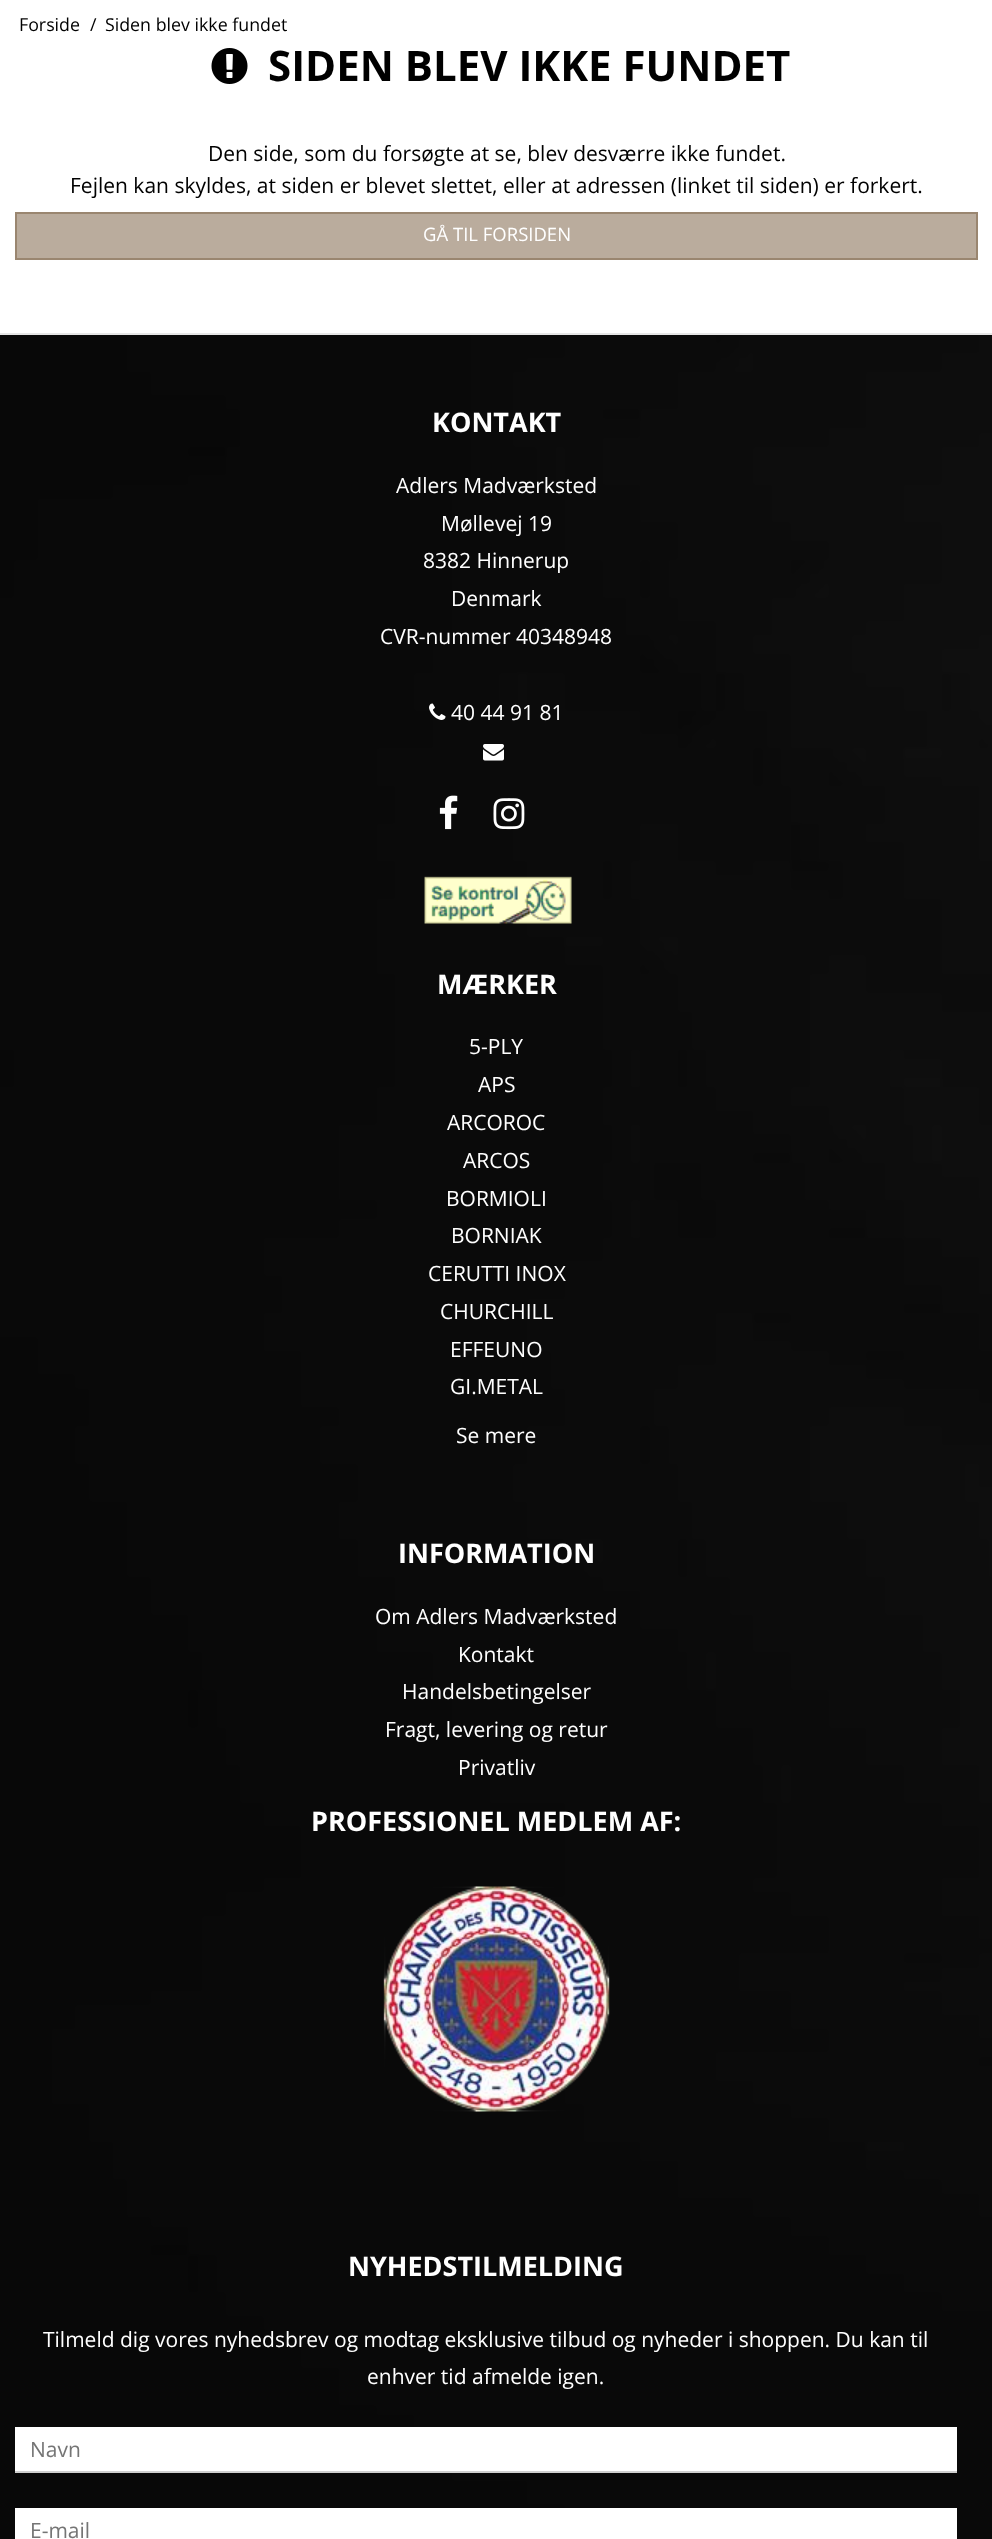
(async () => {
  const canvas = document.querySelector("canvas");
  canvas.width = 992;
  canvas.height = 2539;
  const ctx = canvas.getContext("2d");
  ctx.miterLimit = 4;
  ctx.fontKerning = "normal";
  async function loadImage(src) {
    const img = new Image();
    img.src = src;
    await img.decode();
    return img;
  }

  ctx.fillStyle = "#ffffff";
  ctx.fillRect(0, 0, 992, 2539);
  ctx.drawImage(await loadImage("img/1.png"), 211, 48, 37, 36);
  ctx.fillStyle = "#baac9d";
  ctx.beginPath();
  ctx.rect(16, 213, 961, 46);
  ctx.fill();
  ctx.strokeStyle = "#9a8670";
  ctx.lineWidth = 2;
  ctx.stroke();
  ctx.drawImage(await loadImage("img/2.png"), 0, 335, 992, 2204);
  ctx.fillStyle = "#e6e6e6";
  ctx.fillRect(0, 333, 992, 2);
  ctx.drawImage(await loadImage("img/3.png"), 429, 703, 17, 17);
  ctx.drawImage(await loadImage("img/4.png"), 483, 744, 21, 17);
  ctx.drawImage(await loadImage("img/5.png"), 439, 795, 19, 35);
  ctx.drawImage(await loadImage("img/6.png"), 493, 798, 32, 32);
  ctx.drawImage(await loadImage("img/7.png"), 424, 876, 148, 48);
  ctx.drawImage(await loadImage("img/8.png"), 383, 1886, 227, 226);
  for (const [x, y, w, h, color] of [
    [15, 2427, 942, 44, "#ffffff"],
    [15, 2471, 942, 2, "#cfcfcf"],
    [15, 2508, 942, 31, "#ffffff"],
  ]) {
    ctx.fillStyle = color;
    ctx.fillRect(x, y, w, h);
  }
  ctx.font = "17.8px Open Sans";
  ctx.fillStyle = "#000000";
  for (const [text, x, y] of [
    ["Forside", 19, 31],
    ["/", 90, 31],
    ["Siden blev ikke fundet", 105, 31],
  ]) {
    ctx.fillText(text, x, y);
  }
  ctx.font = "bold 42px Open Sans";
  ctx.fillText("SIDEN BLEV IKKE FUNDET", 268, 81);
  ctx.font = "21px Open Sans";
  ctx.fillText("Den side, som du forsøgte at se, blev desværre ikke fundet.", 208, 161);
  ctx.fillText("Fejlen kan skyldes, at siden er blevet slettet, eller at adressen (linket til siden) er forkert.", 70, 193);
  ctx.font = "18.5px Open Sans";
  ctx.fillStyle = "#ffffff";
  ctx.fillText("GÅ TIL FORSIDEN", 423, 241);
  ctx.font = "bold 27px Open Sans";
  ctx.fillText("KONTAKT", 432, 432);
  ctx.font = "21px Open Sans";
  for (const [text, x, y] of [
    ["Adlers Madværksted", 396, 493],
    ["Møllevej 19", 441, 531],
    ["8382 Hinnerup", 423, 568],
    ["Denmark", 451, 606],
    ["CVR-nummer 40348948", 380, 644],
    ["40 44 91 81", 451, 720],
  ]) {
    ctx.fillText(text, x, y);
  }
  ctx.font = "bold 27px Open Sans";
  ctx.fillText("MÆRKER", 437, 994);
  ctx.font = "21px Open Sans";
  for (const [text, x, y] of [
    ["5-PLY", 469, 1054],
    ["APS", 478, 1092],
    ["ARCOROC", 447, 1130],
    ["ARCOS", 463, 1168],
    ["BORMIOLI", 446, 1206],
    ["BORNIAK", 451, 1243],
    ["CERUTTI INOX", 428, 1281],
    ["CHURCHILL", 440, 1319],
    ["EFFEUNO", 450, 1357],
    ["GI.METAL", 450, 1394],
    ["Se mere", 456, 1443],
  ]) {
    ctx.fillText(text, x, y);
  }
  ctx.font = "bold 27px Open Sans";
  ctx.fillText("INFORMATION", 398, 1563);
  ctx.font = "21px Open Sans";
  for (const [text, x, y] of [
    ["Om Adlers Madværksted", 375, 1624],
    ["Kontakt", 458, 1662],
    ["Handelsbetingelser", 402, 1699],
    ["Fragt, levering og retur", 385, 1737],
    ["Privatliv", 458, 1775],
  ]) {
    ctx.fillText(text, x, y);
  }
  ctx.font = "bold 27px Open Sans";
  ctx.fillText("PROFESSIONEL MEDLEM AF:", 311, 1831);
  ctx.fillText("NYHEDSTILMELDING", 348, 2276);
  ctx.font = "21px Open Sans";
  ctx.fillText("Tilmeld dig vores nyhedsbrev og modtag eksklusive tilbud og nyheder i shoppen. Du kan til", 43, 2347);
  ctx.fillText("enhver tid afmelde igen.", 367, 2384);
  ctx.fillStyle = "#757575";
  ctx.fillText("Navn", 30, 2457);
  ctx.fillText("E-mail", 30, 2538);
})();
